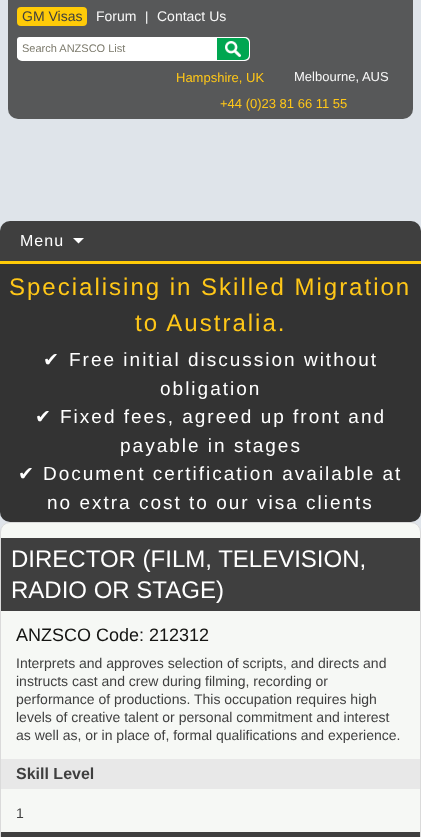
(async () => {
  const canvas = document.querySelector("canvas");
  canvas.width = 421;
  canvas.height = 837;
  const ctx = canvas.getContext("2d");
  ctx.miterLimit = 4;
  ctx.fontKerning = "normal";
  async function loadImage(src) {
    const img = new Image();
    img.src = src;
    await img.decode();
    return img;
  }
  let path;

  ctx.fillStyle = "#dfe4ea";
  ctx.fillRect(0, 0, 421, 837);
  ctx.drawImage(await loadImage("img/1.png"), 8, 0, 405, 119);
  ctx.fillStyle = "#ffcb08";
  ctx.beginPath();
  ctx.roundRect(17, 7, 70, 19, 4);
  ctx.fill();
  ctx.fillStyle = "#ffffff";
  ctx.beginPath();
  ctx.roundRect(17, 37, 233, 24, 5);
  ctx.fill();
  ctx.beginPath();
  ctx.roundRect(17, 37, 200, 22, 3);
  ctx.fill();
  ctx.fillStyle = "#00a651";
  ctx.beginPath();
  ctx.roundRect(217, 38, 32, 22, [0, 5, 5, 0]);
  ctx.fill();
  ctx.drawImage(await loadImage("img/2.png"), 225, 41, 16, 16);
  ctx.fillStyle = "#3f3f3f";
  ctx.beginPath();
  ctx.roundRect(0, 221, 421, 43, [10, 10, 0, 0]);
  ctx.fill();
  ctx.fillStyle = "#ffcb08";
  ctx.fillRect(0, 261, 421, 3);
  ctx.fillStyle = "#ffffff";
  path = new Path2D("M73 238L78.5 243.5L84 238Z");
  ctx.fill(path);
  ctx.fillStyle = "#333333";
  ctx.beginPath();
  ctx.roundRect(0, 264, 421, 258, [0, 0, 10, 10]);
  ctx.fill();
  ctx.fillStyle = "#f6f8f5";
  ctx.beginPath();
  ctx.roundRect(0.5, 522.5, 420, 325, 9.5);
  ctx.fill();
  ctx.strokeStyle = "#dadada";
  ctx.stroke();
  for (const [x, y, w, h, color] of [
    [1, 538, 419, 73, "#3f3f3f"],
    [1, 759, 419, 30, "#e8e8e8"],
    [1, 832, 419, 5, "#3f3f3f"],
  ]) {
    ctx.fillStyle = color;
    ctx.fillRect(x, y, w, h);
  }
  ctx.font = "14px Liberation Sans";
  ctx.fillText("GM Visas", 22, 21);
  ctx.fillStyle = "#f7f7f7";
  ctx.fillText("Forum", 96, 21);
  ctx.font = "13px Liberation Sans";
  ctx.fillStyle = "#ffffff";
  ctx.fillText("|", 145, 21);
  ctx.font = "14px Liberation Sans";
  ctx.fillStyle = "#f7f7f7";
  ctx.fillText("Contact Us", 157, 21);
  ctx.font = "11px Liberation Sans";
  ctx.fillStyle = "#7d7b6d";
  ctx.fillText("Search ANZSCO List", 22, 52);
  ctx.font = "13px Liberation Sans";
  ctx.fillStyle = "#ffc718";
  ctx.fillText("Hampshire, UK", 176, 82);
  ctx.fillStyle = "#f7f7f7";
  ctx.fillText("Melbourne, AUS", 294, 81);
  ctx.fillStyle = "#ffc718";
  ctx.fillText("+44 (0)23 81 66 11 55", 220, 108);
  ctx.letterSpacing = "1px";
  ctx.font = "16px Liberation Sans";
  ctx.fillStyle = "#ffffff";
  ctx.fillText("Menu", 20, 246);
  ctx.letterSpacing = "2px";
  ctx.font = "24px Liberation Sans";
  ctx.fillStyle = "#ffc718";
  ctx.fillText("Specialising in Skilled Migration", 9, 295);
  ctx.fillText("to Australia.", 135, 331);
  ctx.font = "19px DejaVu Sans";
  ctx.fillStyle = "#ffffff";
  ctx.fillText("✔", 43, 366);
  ctx.font = "19px Liberation Sans";
  ctx.fillText("Free initial discussion without", 69, 366);
  ctx.fillText("obligation", 160, 395);
  ctx.font = "19px DejaVu Sans";
  ctx.fillText("✔", 35, 423);
  ctx.font = "19px Liberation Sans";
  ctx.fillText("Fixed fees, agreed up front and", 60, 423);
  ctx.fillText("payable in stages", 120, 452);
  ctx.font = "19px DejaVu Sans";
  ctx.fillText("✔", 18, 480);
  ctx.font = "19px Liberation Sans";
  ctx.fillText("Document certification available at", 43, 480);
  ctx.fillText("no extra cost to our visa clients", 47, 509);
  ctx.letterSpacing = "0px";
  ctx.font = "24px Liberation Sans";
  ctx.fillText("DIRECTOR (FILM, TELEVISION,", 11, 567);
  ctx.fillText("RADIO OR STAGE)", 11, 598);
  ctx.font = "18px Liberation Sans";
  ctx.fillStyle = "#141412";
  ctx.fillText("ANZSCO Code: 212312", 16, 641);
  ctx.font = "14px Liberation Sans";
  ctx.fillStyle = "#3f3f3f";
  for (const [text, x, y] of [
    ["Interprets and approves selection of scripts, and directs and", 16, 668],
    ["instructs cast and crew during filming, recording or", 16, 686],
    ["performance of productions. This occupation requires high", 16, 704],
    ["levels of creative talent or personal commitment and interest", 16, 722],
    ["as well as, or in place of, formal qualifications and experience.", 16, 740],
  ]) {
    ctx.fillText(text, x, y);
  }
  ctx.font = "bold 16px Liberation Sans";
  ctx.fillText("Skill Level", 16, 779);
  ctx.font = "14px Liberation Sans";
  ctx.fillText("1", 16, 818);
})();
